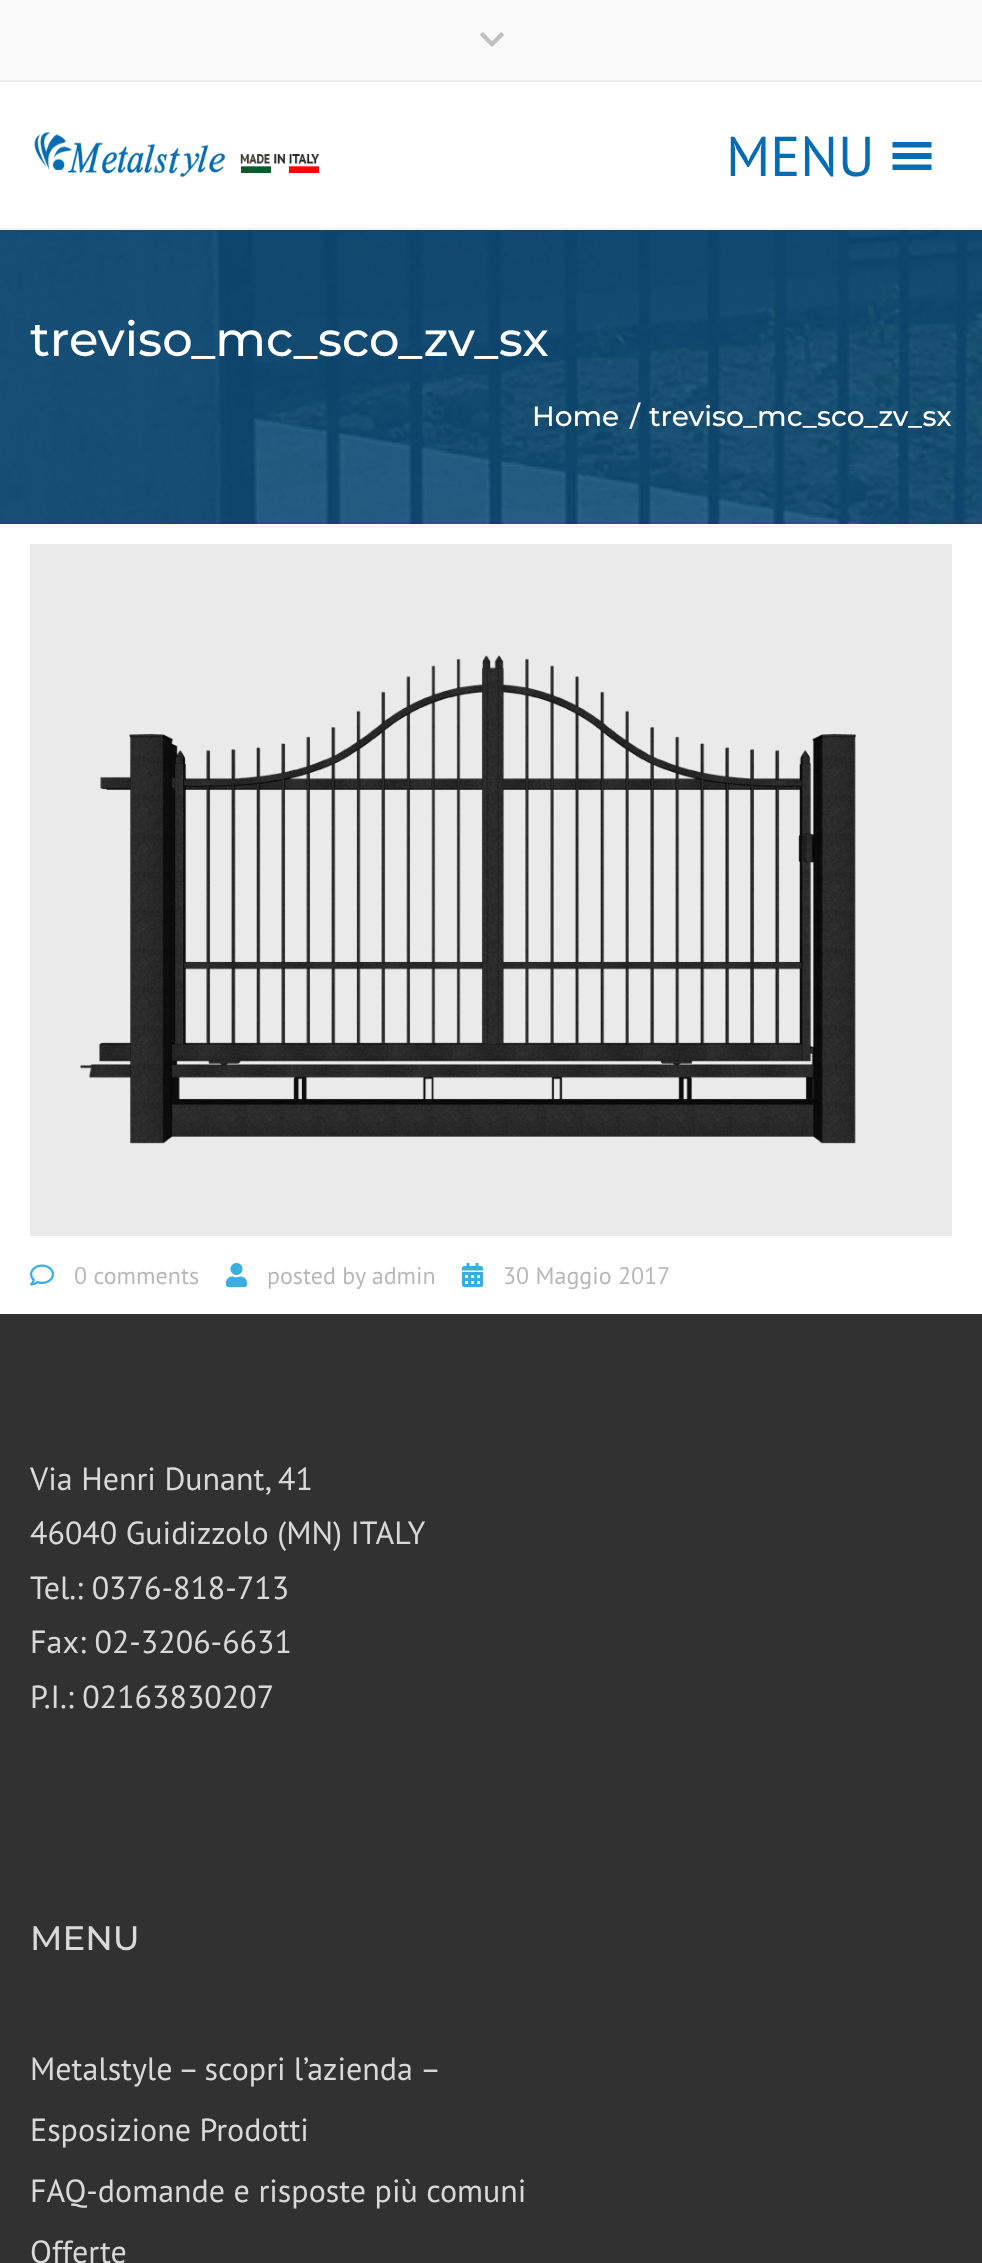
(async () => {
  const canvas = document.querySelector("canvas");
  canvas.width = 982;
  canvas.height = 2263;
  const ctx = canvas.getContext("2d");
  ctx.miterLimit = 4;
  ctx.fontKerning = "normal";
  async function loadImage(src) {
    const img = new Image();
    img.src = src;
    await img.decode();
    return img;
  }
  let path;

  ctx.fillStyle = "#ffffff";
  ctx.fillRect(0, 0, 982, 2263);
  ctx.fillStyle = "#f9f9f9";
  ctx.fillRect(0, 0, 982, 80);
  ctx.fillStyle = "#ededed";
  ctx.fillRect(0, 80, 982, 2);
  ctx.drawImage(await loadImage("img/1.png"), 480, 32, 24, 15);
  ctx.fillStyle = "#f2f2f2";
  ctx.fillRect(0, 228, 982, 2);
  ctx.drawImage(await loadImage("img/2.png"), 34, 132, 286, 45);
  ctx.fillStyle = "#046cb4";
  path = new Path2D("M892.5 170H931.5V164.5H892.5ZM892.5 142V147.5H931.5V142ZM892.5 159H931.5V153H892.5Z");
  ctx.fill(path);
  ctx.drawImage(await loadImage("img/3.png"), 0, 230, 982, 294);
  ctx.fillStyle = "rgba(0, 0, 0, 0.04)";
  ctx.fillRect(0, 522, 982, 2);
  ctx.drawImage(await loadImage("img/4.png"), 30, 544, 922, 692);
  ctx.drawImage(await loadImage("img/5.png"), 30, 1264, 24, 22);
  ctx.drawImage(await loadImage("img/6.png"), 226, 1263, 21, 24);
  ctx.drawImage(await loadImage("img/7.png"), 462, 1263, 21, 24);
  ctx.fillStyle = "#313131";
  ctx.fillRect(0, 1314, 982, 949);
  ctx.font = "56px PT Sans";
  ctx.fillStyle = "#046cb4";
  ctx.fillText("MENU", 726, 176);
  ctx.font = "500 48px Montserrat";
  ctx.fillStyle = "#ffffff";
  ctx.fillText("treviso_mc_sco_zv_sx", 30, 356);
  ctx.font = "500 28px Montserrat";
  for (const [text, x, y] of [
    ["Home", 532, 426],
    ["/", 630, 426],
    ["treviso_mc_sco_zv_sx", 649, 426],
  ]) {
    ctx.fillText(text, x, y);
  }
  ctx.font = "24px PT Sans";
  ctx.fillStyle = "#b8b8b8";
  for (const [text, x, y] of [
    ["0 comments", 74, 1284],
    ["posted by admin", 267, 1284],
    ["30 Maggio 2017", 503, 1284],
  ]) {
    ctx.fillText(text, x, y);
  }
  ctx.font = "32px PT Sans";
  ctx.fillStyle = "#d9d9d9";
  for (const [text, x, y] of [
    ["Via Henri Dunant, 41", 30, 1490],
    ["46040 Guidizzolo (MN) ITALY", 30, 1544],
    ["Tel.: 0376-818-713", 30, 1599],
    ["Fax: 02-3206-6631", 30, 1653],
    ["P.I.: 02163830207", 30, 1708],
  ]) {
    ctx.fillText(text, x, y);
  }
  ctx.font = "500 34px Montserrat";
  ctx.fillText("MENU", 30, 1950);
  ctx.wordSpacing = "-0.5px";
  ctx.font = "32px PT Sans";
  ctx.fillText("Metalstyle – scopri l’azienda", 30, 2080);
  ctx.wordSpacing = "0px";
  for (const [text, x, y] of [
    ["–", 420, 2080],
    ["Esposizione Prodotti", 30, 2141],
    ["FAQ-domande e risposte più comuni", 30, 2202],
    ["Offerte", 30, 2263],
  ]) {
    ctx.fillText(text, x, y);
  }
})();
